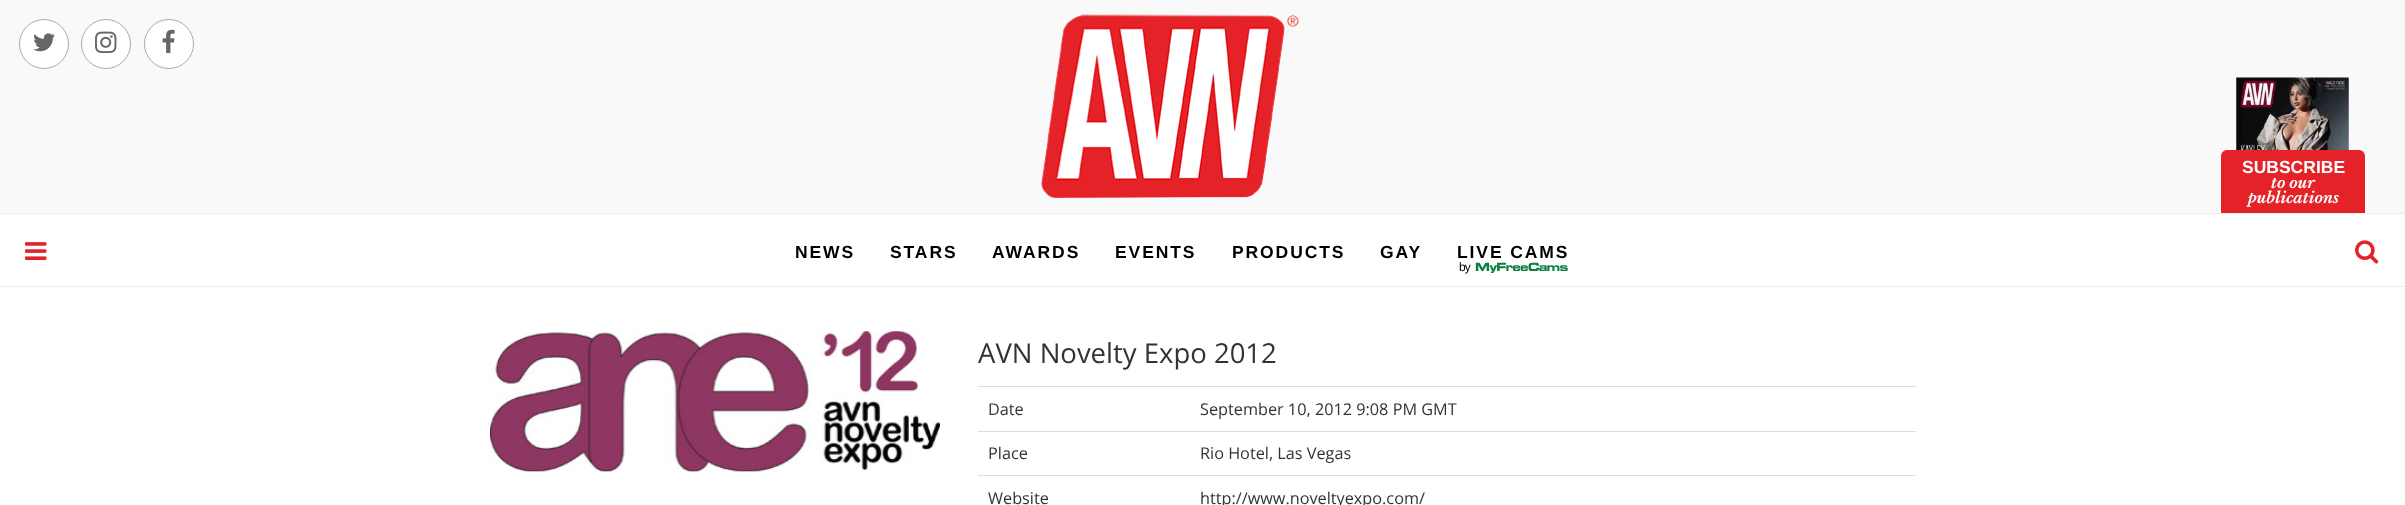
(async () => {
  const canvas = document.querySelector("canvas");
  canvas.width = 2405;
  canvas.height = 505;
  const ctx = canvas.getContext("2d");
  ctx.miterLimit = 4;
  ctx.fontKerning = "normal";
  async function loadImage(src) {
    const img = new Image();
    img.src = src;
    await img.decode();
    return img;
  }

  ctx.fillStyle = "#ffffff";
  ctx.fillRect(0, 0, 2405, 505);
  ctx.fillStyle = "#f9f9f9";
  ctx.fillRect(0, 0, 2405, 213);
  ctx.fillStyle = "#ffffff";
  ctx.beginPath();
  ctx.arc(44, 44, 24.5, 0, Math.PI * 2);
  ctx.fill();
  ctx.strokeStyle = "#aaaaaa";
  ctx.stroke();
  ctx.drawImage(await loadImage("img/1.png"), 33, 33, 22, 19);
  ctx.beginPath();
  ctx.arc(106, 44, 24.5, 0, Math.PI * 2);
  ctx.fill();
  ctx.stroke();
  ctx.drawImage(await loadImage("img/2.png"), 95, 31, 22, 22);
  ctx.beginPath();
  ctx.arc(169, 44, 24.5, 0, Math.PI * 2);
  ctx.fill();
  ctx.stroke();
  ctx.drawImage(await loadImage("img/3.png"), 162, 29, 13, 25);
  ctx.drawImage(await loadImage("img/4.png"), 1041, 14, 258, 184);
  ctx.drawImage(await loadImage("img/5.png"), 2236, 77, 113, 73);
  ctx.fillStyle = "#e42228";
  ctx.beginPath();
  ctx.roundRect(2221, 150, 144, 63, [6, 6, 0, 0]);
  ctx.fill();
  ctx.fillStyle = "#ededed";
  ctx.fillRect(0, 213, 2405, 1);
  ctx.fillRect(0, 286, 2405, 1);
  ctx.drawImage(await loadImage("img/6.png"), 25, 242, 22, 18);
  ctx.drawImage(await loadImage("img/7.png"), 2355, 240, 24, 24);
  ctx.drawImage(await loadImage("img/8.png"), 490, 331, 450, 141);
  for (const [x, y, w, h, color] of [
    [978, 386, 938, 1, "#dddddd"],
    [978, 431, 938, 1, "#dddddd"],
    [978, 475, 938, 1, "#dddddd"],
  ]) {
    ctx.fillStyle = color;
    ctx.fillRect(x, y, w, h);
  }
  ctx.font = "bold 17.5px Liberation Sans";
  ctx.fillStyle = "#ffffff";
  ctx.fillText("SUBSCRIBE", 2242, 173);
  ctx.font = "italic bold 15px Libre Baskerville";
  ctx.fillText("to our", 2271, 188);
  ctx.fillText("publications", 2248, 203);
  ctx.letterSpacing = "1.9px";
  ctx.font = "bold 17.5px Liberation Sans";
  ctx.fillStyle = "#000000";
  for (const [text, x, y] of [
    ["NEWS", 795, 258],
    ["STARS", 890, 258],
    ["AWARDS", 992, 258],
    ["EVENTS", 1115, 258],
    ["PRODUCTS", 1232, 258],
    ["GAY", 1380, 258],
    ["LIVE CAMS", 1457, 258],
  ]) {
    ctx.fillText(text, x, y);
  }
  ctx.letterSpacing = "-1px";
  ctx.font = "12px Liberation Sans";
  ctx.fillText("by", 1459, 271);
  ctx.letterSpacing = "-0.75px";
  ctx.font = "bold 11.25px 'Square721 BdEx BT'";
  ctx.fillStyle = "#0b7f3e";
  ctx.fillText("MyFreeCams", 1475, 271);
  ctx.letterSpacing = "0px";
  ctx.font = "27.5px Open Sans";
  ctx.fillStyle = "#333333";
  ctx.fillText("AVN Novelty Expo 2012", 978, 363);
  ctx.font = "16.25px Open Sans";
  for (const [text, x, y] of [
    ["Date", 988, 415],
    ["September 10, 2012 9:08 PM GMT", 1200, 415],
    ["Place", 988, 459],
    ["Rio Hotel, Las Vegas", 1200, 459],
    ["Website", 988, 504],
    ["http://www.noveltyexpo.com/", 1200, 504],
  ]) {
    ctx.fillText(text, x, y);
  }
})();
